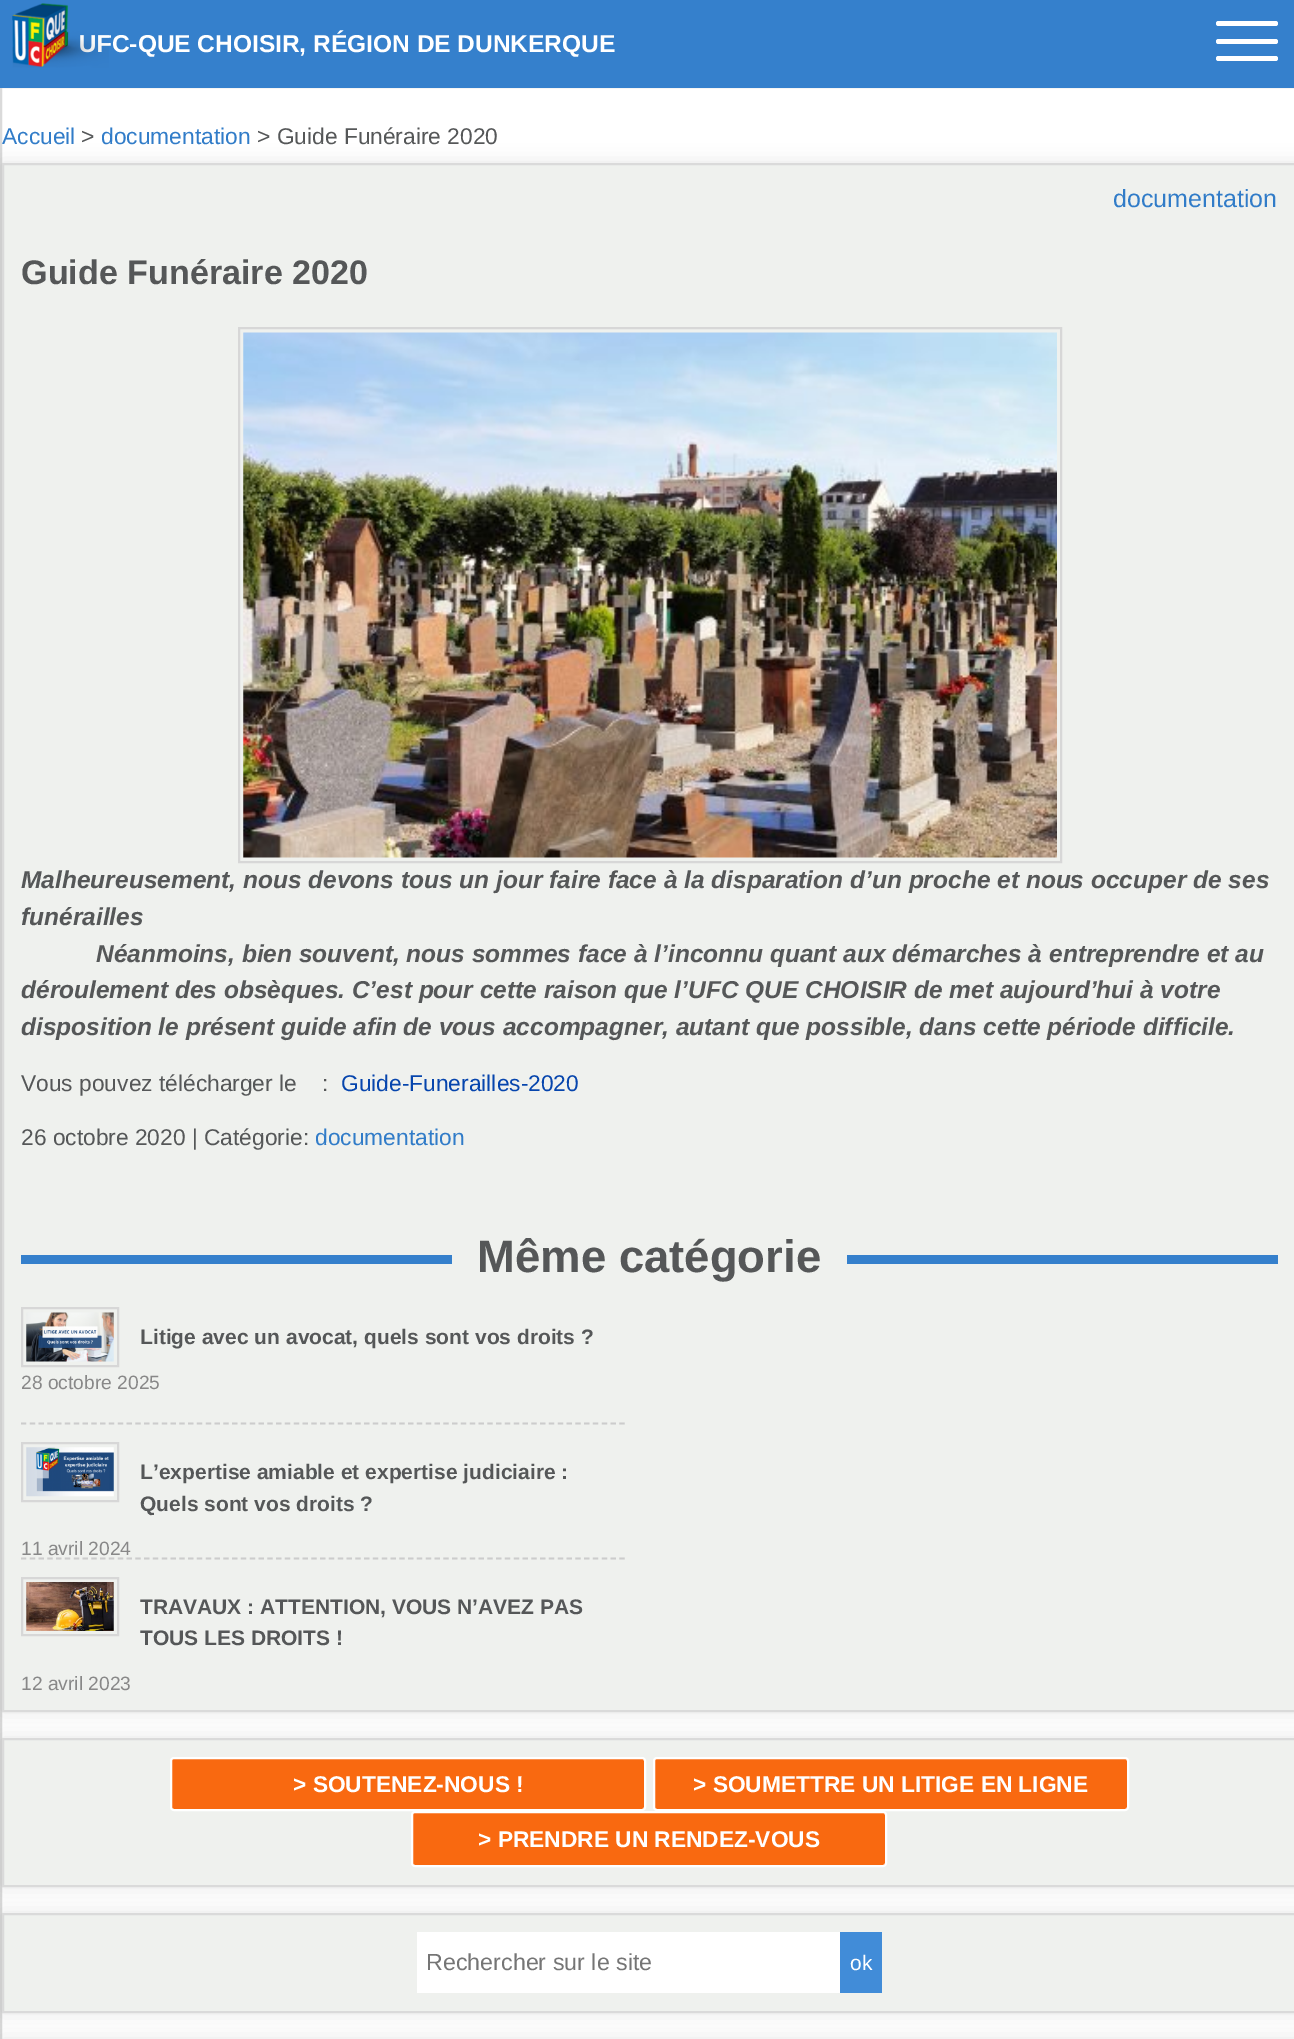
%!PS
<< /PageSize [1294 2039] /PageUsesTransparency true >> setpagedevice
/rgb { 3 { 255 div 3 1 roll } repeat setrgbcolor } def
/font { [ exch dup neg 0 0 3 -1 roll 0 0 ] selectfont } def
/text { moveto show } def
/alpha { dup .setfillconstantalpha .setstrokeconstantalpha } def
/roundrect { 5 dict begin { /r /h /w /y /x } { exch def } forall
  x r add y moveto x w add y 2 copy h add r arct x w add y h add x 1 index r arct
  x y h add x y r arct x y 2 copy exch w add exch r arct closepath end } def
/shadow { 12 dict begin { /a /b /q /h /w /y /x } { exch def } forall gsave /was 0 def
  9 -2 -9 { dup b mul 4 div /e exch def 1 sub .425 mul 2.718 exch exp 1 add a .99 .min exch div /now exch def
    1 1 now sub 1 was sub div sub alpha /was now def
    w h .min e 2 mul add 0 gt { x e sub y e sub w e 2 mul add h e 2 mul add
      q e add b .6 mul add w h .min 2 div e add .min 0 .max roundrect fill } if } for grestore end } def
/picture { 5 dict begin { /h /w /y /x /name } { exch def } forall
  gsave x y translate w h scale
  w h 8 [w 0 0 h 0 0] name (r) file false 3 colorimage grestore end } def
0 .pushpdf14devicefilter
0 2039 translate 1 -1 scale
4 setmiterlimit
255 255 255 rgb
0 0 1294 2039 rectfill
218 218 218 rgb
2 setlinewidth
1 87 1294 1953 rectstroke
53 128 204 rgb
0 0 1294 88 rectfill
255 255 255 rgb
1216 21 62 5 2.5 roundrect fill
1216 39 62 5 2.5 roundrect fill
1216 56 62 5 2.5 roundrect fill
0 0 0 rgb
2 163 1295 1549 0 9 0.1 shadow
239 241 238 rgb
3 164 moveto 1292 0 rlineto 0 1547 rlineto -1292 0 rlineto closepath gsave fill grestore
218 218 218 rgb
stroke
215 215 215 rgb
239 328 822 534 rectstroke
(img_02.rgb) 243 332 814 526 picture
53 128 204 rgb
21 1255 1257 9 rectfill
239 241 238 rgb
452 1255 395 9 rectfill
204 204 204 rgb
1.8 setlinewidth
[5.25 3.55] 0 setdash
21 1423.5 moveto 604 0 rlineto stroke
215 215 215 rgb
2 setlinewidth
[] 0 setdash
22 1308 96 58 rectstroke
(img_03.rgb) 26 1312 88 50 picture
204 204 204 rgb
1.8 setlinewidth
[5.25 3.55] 0 setdash
21 1558.5 moveto 604 0 rlineto stroke
215 215 215 rgb
2 setlinewidth
[] 0 setdash
22 1443 96 58 rectstroke
(img_04.rgb) 26 1447 88 50 picture
22 1578 96 57 rectstroke
(img_05.rgb) 26 1582 88 49 picture
0 0 0 rgb
2 1738 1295 149 0 9 0.1 shadow
239 241 238 rgb
3 1739 moveto 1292 0 rlineto 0 147 rlineto -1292 0 rlineto closepath gsave fill grestore
218 218 218 rgb
stroke
249 105 16 rgb
171 1758 474 52 3 roundrect gsave fill grestore
255 255 255 rgb
stroke
249 105 16 rgb
654 1758 474 52 3 roundrect gsave fill grestore
255 255 255 rgb
stroke
249 105 16 rgb
412 1812 474 54 3 roundrect gsave fill grestore
255 255 255 rgb
stroke
0 0 0 rgb
2 1913 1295 100 0 9 0.1 shadow
239 241 238 rgb
3 1914 moveto 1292 0 rlineto 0 98 rlineto -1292 0 rlineto closepath gsave fill grestore
218 218 218 rgb
stroke
255 255 255 rgb
417 1932 423 61 rectfill
65 140 216 rgb
840 1932 42 61 rectfill
0 0 0 rgb
2 2039 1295 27 0 9 0.1 shadow
/LiberationSans-Bold 24.5 font
255 255 255 rgb
(UFC-QUE CHOISIR, RÉGION DE DUNKERQUE) 79 52 text
(img_01.rgb) 12 3 97 65 picture
/LiberationSans-Regular 22.75 font
49 124 200 rgb
(Accueil) 2 144 text
85 87 88 rgb
(>) 81 144 text
49 124 200 rgb
(documentation) 101 144 text
85 87 88 rgb
(> Guide Funéraire 2020) 257 144 text
/LiberationSans-Regular 25 font
49 124 200 rgb
(documentation) 1113 207 text
/LiberationSans-Bold 34.1 font
85 87 88 rgb
(Guide Funéraire 2020) 21 284 text
/LiberationSans-BoldItalic 24.5 font
(Malheureusement, nous devons tous un jour faire face à la disparation d’un proche et nous occuper de ses) 21 888 text
(funérailles) 21 925 text
(Néanmoins, bien souvent, nous sommes face à l’inconnu quant aux démarches à entreprendre et au) 96 962 text
(déroulement des obsèques. C’est pour cette raison que l’UFC QUE CHOISIR de met aujourd’hui à votre) 21 998 text
(disposition le présent guide afin de vous accompagner, autant que possible, dans cette période difficile.) 21 1035 text
/LiberationSans-Regular 22.75 font
(Vous pouvez télécharger le    :) 21 1091 text
6 69 173 rgb
(Guide-Funerailles-2020) 341 1091 text
85 87 88 rgb
(26 octobre 2020 | Catégorie:) 21 1145 text
49 124 200 rgb
(documentation) 315 1145 text
/LiberationSans-Bold 45.5 font
85 87 88 rgb
(Même catégorie) 477 1272 text
/LiberationSans-Bold 21 font
(Litige avec un avocat, quels sont vos droits ?) 140 1344 text
/LiberationSans-Regular 19.25 font
136 136 136 rgb
(28 octobre 2025) 21 1389 text
/LiberationSans-Bold 21 font
85 87 88 rgb
(L’expertise amiable et expertise judiciaire :) 140 1479 text
(Quels sont vos droits ?) 140 1511 text
/LiberationSans-Regular 19.25 font
136 136 136 rgb
(11 avril 2024) 21 1555 text
/LiberationSans-Bold 21 font
85 87 88 rgb
(TRAVAUX : ATTENTION, VOUS N’AVEZ PAS) 140 1614 text
(TOUS LES DROITS !) 140 1645 text
/LiberationSans-Regular 19.25 font
136 136 136 rgb
(12 avril 2023) 21 1690 text
/LiberationSans-Bold 22.75 font
255 255 255 rgb
(> SOUTENEZ-NOUS !) 293 1792 text
(> SOUMETTRE UN LITIGE EN LIGNE) 693 1792 text
(> PRENDRE UN RENDEZ-VOUS) 478 1847 text
/LiberationSans-Regular 23.25 font
117 117 117 rgb
(Rechercher sur le site) 426 1970 text
/LiberationSans-Regular 21 font
255 255 255 rgb
(ok) 850 1970 text
.poppdf14devicefilter showpage
